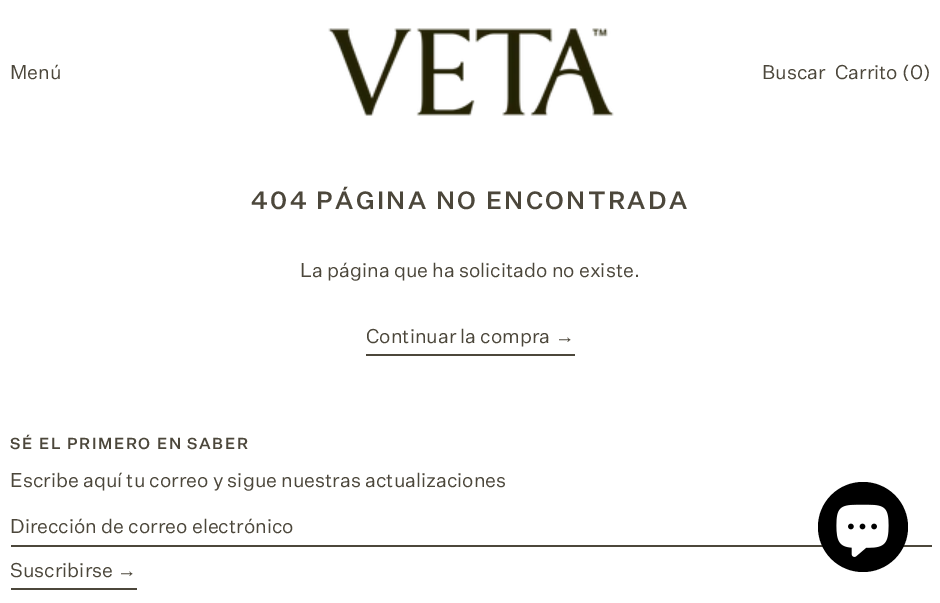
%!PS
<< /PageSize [940 603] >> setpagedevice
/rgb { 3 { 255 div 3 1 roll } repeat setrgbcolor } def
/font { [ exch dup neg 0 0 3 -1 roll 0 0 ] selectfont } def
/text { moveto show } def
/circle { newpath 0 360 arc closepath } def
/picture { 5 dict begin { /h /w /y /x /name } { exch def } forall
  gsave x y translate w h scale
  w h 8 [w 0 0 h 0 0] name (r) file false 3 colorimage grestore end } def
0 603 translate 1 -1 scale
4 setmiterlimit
255 255 255 rgb
0 0 940 603 rectfill
(img_01.rgb) 328 28 286 88 picture
76 71 59 rgb
366 354 209 2 rectfill
11 545 921 2 rectfill
11 588 126 2 rectfill
0 0 0 rgb
863 527 45 circle fill
(img_02.rgb) 836 504 53 53 picture
/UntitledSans-Regular 19.5 font
76 71 59 rgb
(Menú) 10 79 text
(Buscar) 762 79 text
(Carrito \(0\)) 835 79 text
/UntitledSans-Medium 24.4 font
251 209 moveto 2.4 0 (404 PÁGINA NO ENCONTRADA) ashow
/UntitledSans-Regular 19.5 font
(La página que ha solicitado no existe.) 300 277 text
(Continuar la compra) 366 343 text
/LiberationSerif-Regular 19.5 font
(→) 555 343 text
/UntitledSans-Medium 15.6 font
10 449 moveto 1.6 0 (SÉ EL PRIMERO EN SABER) ashow
/UntitledSans-Regular 19.5 font
(Escribe aquí tu correo y sigue nuestras actualizaciones) 10 487 text
(Dirección de correo electrónico) 10 533 text
(Suscribirse) 10 577 text
/LiberationSerif-Regular 19.5 font
(→) 117 577 text
showpage
